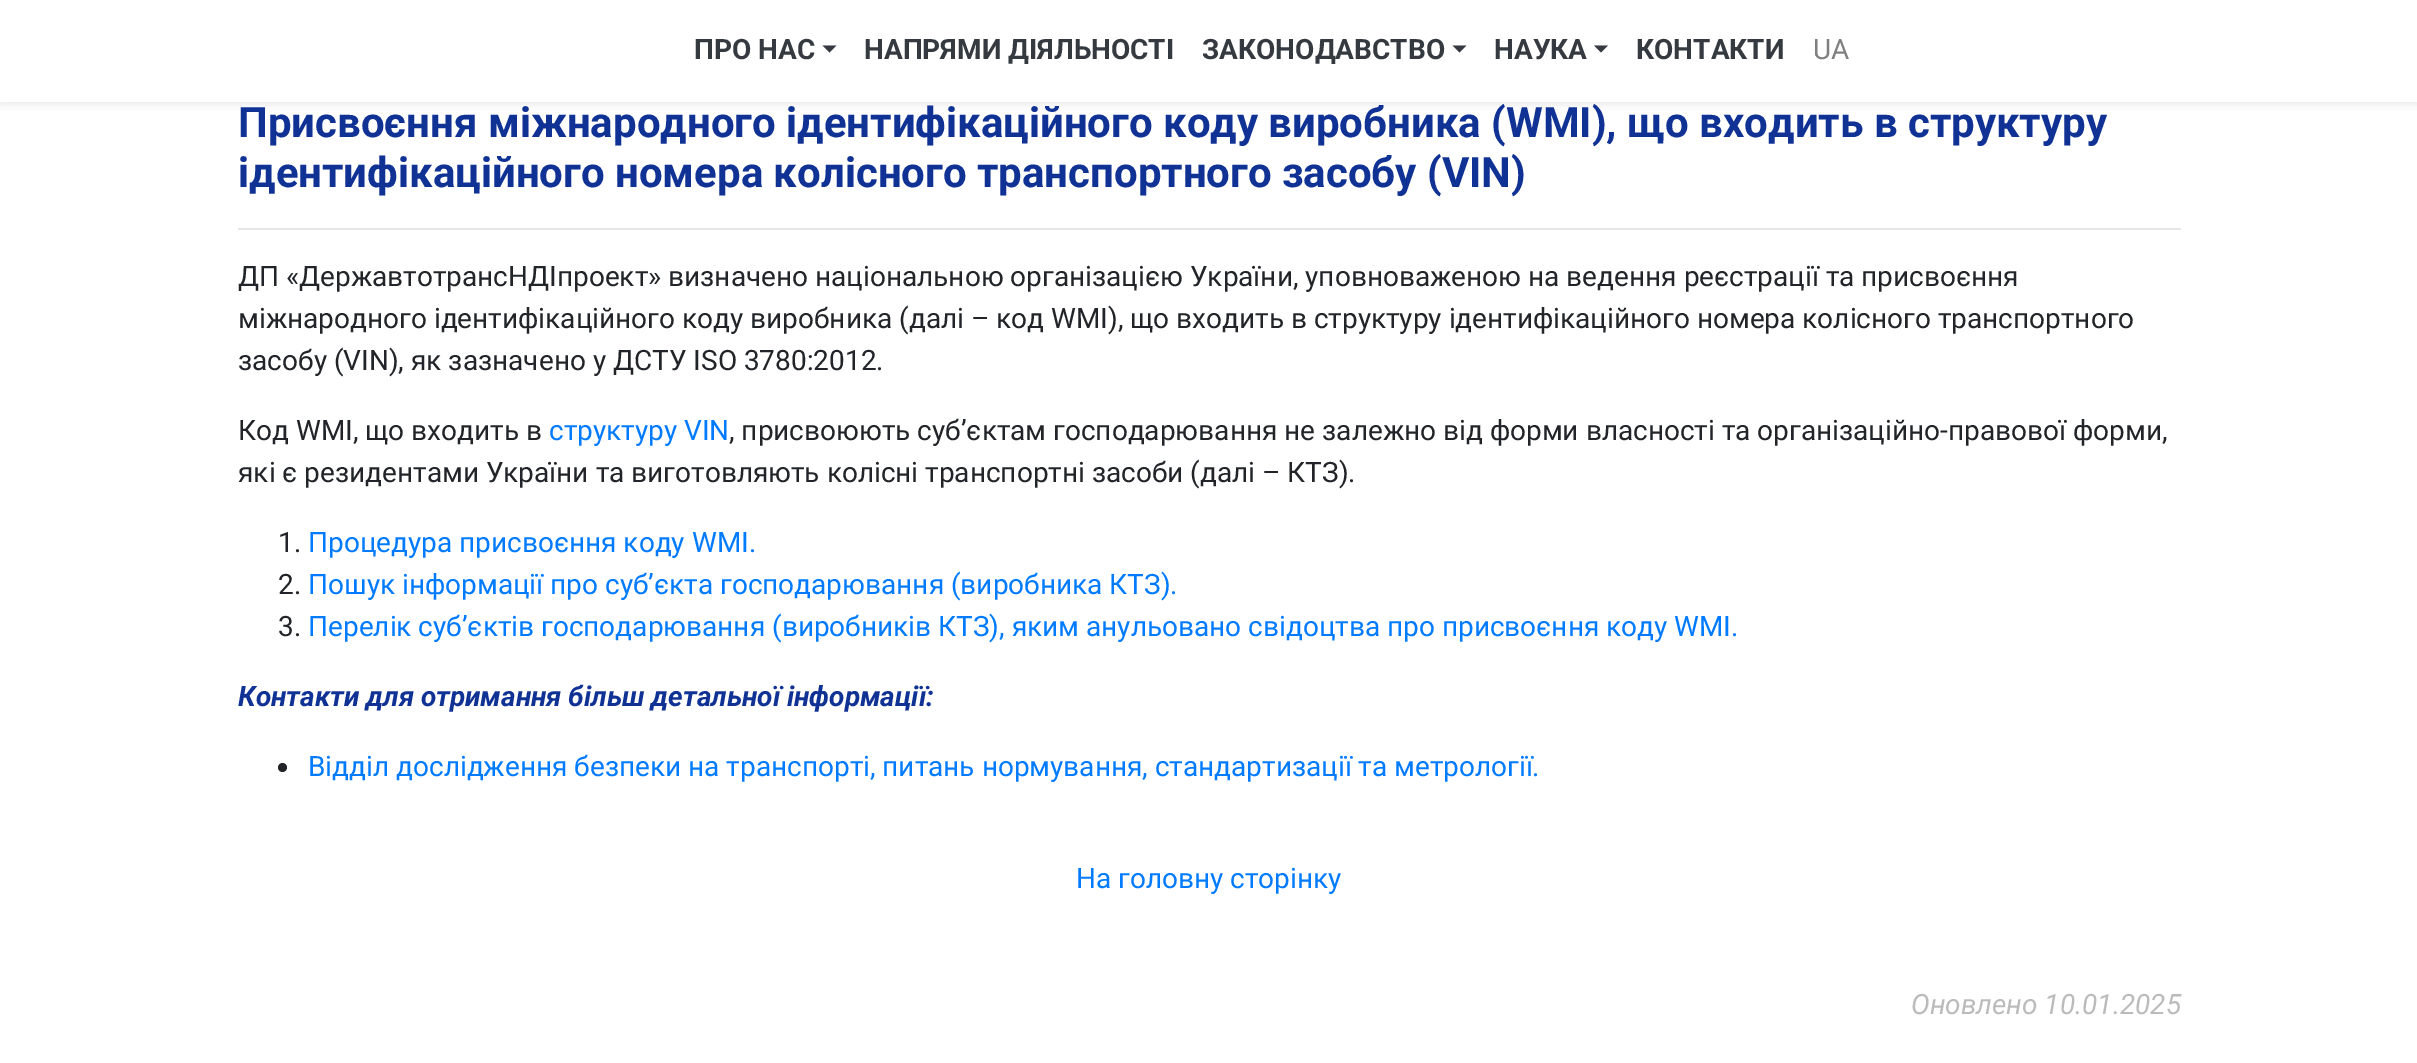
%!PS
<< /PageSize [2417 1063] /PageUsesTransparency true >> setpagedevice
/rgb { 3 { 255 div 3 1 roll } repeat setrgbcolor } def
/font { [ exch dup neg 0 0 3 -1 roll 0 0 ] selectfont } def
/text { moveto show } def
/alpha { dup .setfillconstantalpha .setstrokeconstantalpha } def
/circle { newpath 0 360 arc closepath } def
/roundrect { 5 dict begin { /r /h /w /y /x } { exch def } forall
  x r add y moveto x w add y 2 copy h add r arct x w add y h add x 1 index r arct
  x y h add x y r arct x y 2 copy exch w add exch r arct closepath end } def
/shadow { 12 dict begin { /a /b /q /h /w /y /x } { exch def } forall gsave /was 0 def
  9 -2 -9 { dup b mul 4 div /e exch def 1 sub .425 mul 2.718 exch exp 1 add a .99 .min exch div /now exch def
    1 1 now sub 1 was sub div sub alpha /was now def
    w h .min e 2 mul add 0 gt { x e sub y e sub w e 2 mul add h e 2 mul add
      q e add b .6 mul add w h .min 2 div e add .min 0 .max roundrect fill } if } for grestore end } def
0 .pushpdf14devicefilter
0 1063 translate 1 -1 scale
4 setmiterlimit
255 255 255 rgb
0 0 2417 1063 rectfill
0 0 0 rgb
0 4 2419 101 0 3.5 0.07 shadow
255 255 255 rgb
0 0 2417 102 rectfill
52 58 64 rgb
822.5 45.5 moveto 14 0 rlineto -7 7 rlineto closepath fill
1452.5 45.5 moveto 14 0 rlineto -7 7 rlineto closepath fill
1594 45.5 moveto 14 0 rlineto -7 7 rlineto closepath fill
230 230 230 rgb
238 228 1943 2 rectfill
33 37 41 rgb
282.5 767.5 4.5 circle fill
/Roboto-Bold 28 font
52 58 64 rgb
(ПРО НАС) 694 59 text
(НАПРЯМИ ДІЯЛЬНОСТІ) 864 59 text
(ЗАКОНОДАВСТВО) 1202 59 text
(НАУКА) 1494 59 text
(КОНТАКТИ) 1636 59 text
/Roboto-Regular 28 font
128 128 128 rgb
(UA) 1813 59 text
/Roboto-Bold 42 font
16 50 149 rgb
(Присвоєння міжнародного ідентифікаційного коду виробника \(WMI\), що входить в структуру) 238 137 text
(ідентифікаційного номера колісного транспортного засобу \(VIN\)) 238 187 text
/Roboto-Regular 28 font
33 37 41 rgb
(ДП «ДержавтотрансНДІпроект» визначено національною організацією України, уповноваженою на ведення реєстрації та присвоєння) 238 286 text
(міжнародного ідентифікаційного коду виробника \(далі – код WMI\), що входить в структуру ідентифікаційного номера колісного транспортного) 238 328 text
(засобу \(VIN\), як зазначено у ДСТУ ISO 3780:2012.) 238 370 text
(Код WMI, що входить в) 238 440 text
0 123 255 rgb
(структуру VIN) 549 440 text
33 37 41 rgb
(, присвоюють суб’єктам господарювання не залежно від форми власності та організаційно-правової форми,) 729 440 text
(які є резидентами України та виготовляють колісні транспортні засоби \(далі – КТЗ\).) 238 482 text
(1.) 278 552 text
0 123 255 rgb
(Процедура присвоєння коду WMI.) 308 552 text
33 37 41 rgb
(2.) 278 594 text
0 123 255 rgb
(Пошук інформації про суб’єкта господарювання \(виробника КТЗ\).) 308 594 text
33 37 41 rgb
(3.) 278 636 text
0 123 255 rgb
(Перелік суб’єктів господарювання \(виробників КТЗ\), яким анульовано свідоцтва про присвоєння коду WMI.) 308 636 text
/Roboto-BoldItalic 28 font
16 50 149 rgb
(Контакти для отримання більш детальної інформації:) 238 706 text
/Roboto-Regular 28 font
0 123 255 rgb
(Відділ дослідження безпеки на транспорті, питань нормування, стандартизації та метрології.) 308 776 text
(На головну сторінку) 1076 888 text
/Roboto-Italic 28 font
187 187 187 rgb
(Оновлено 10.01.2025) 1911 1014 text
.poppdf14devicefilter showpage
